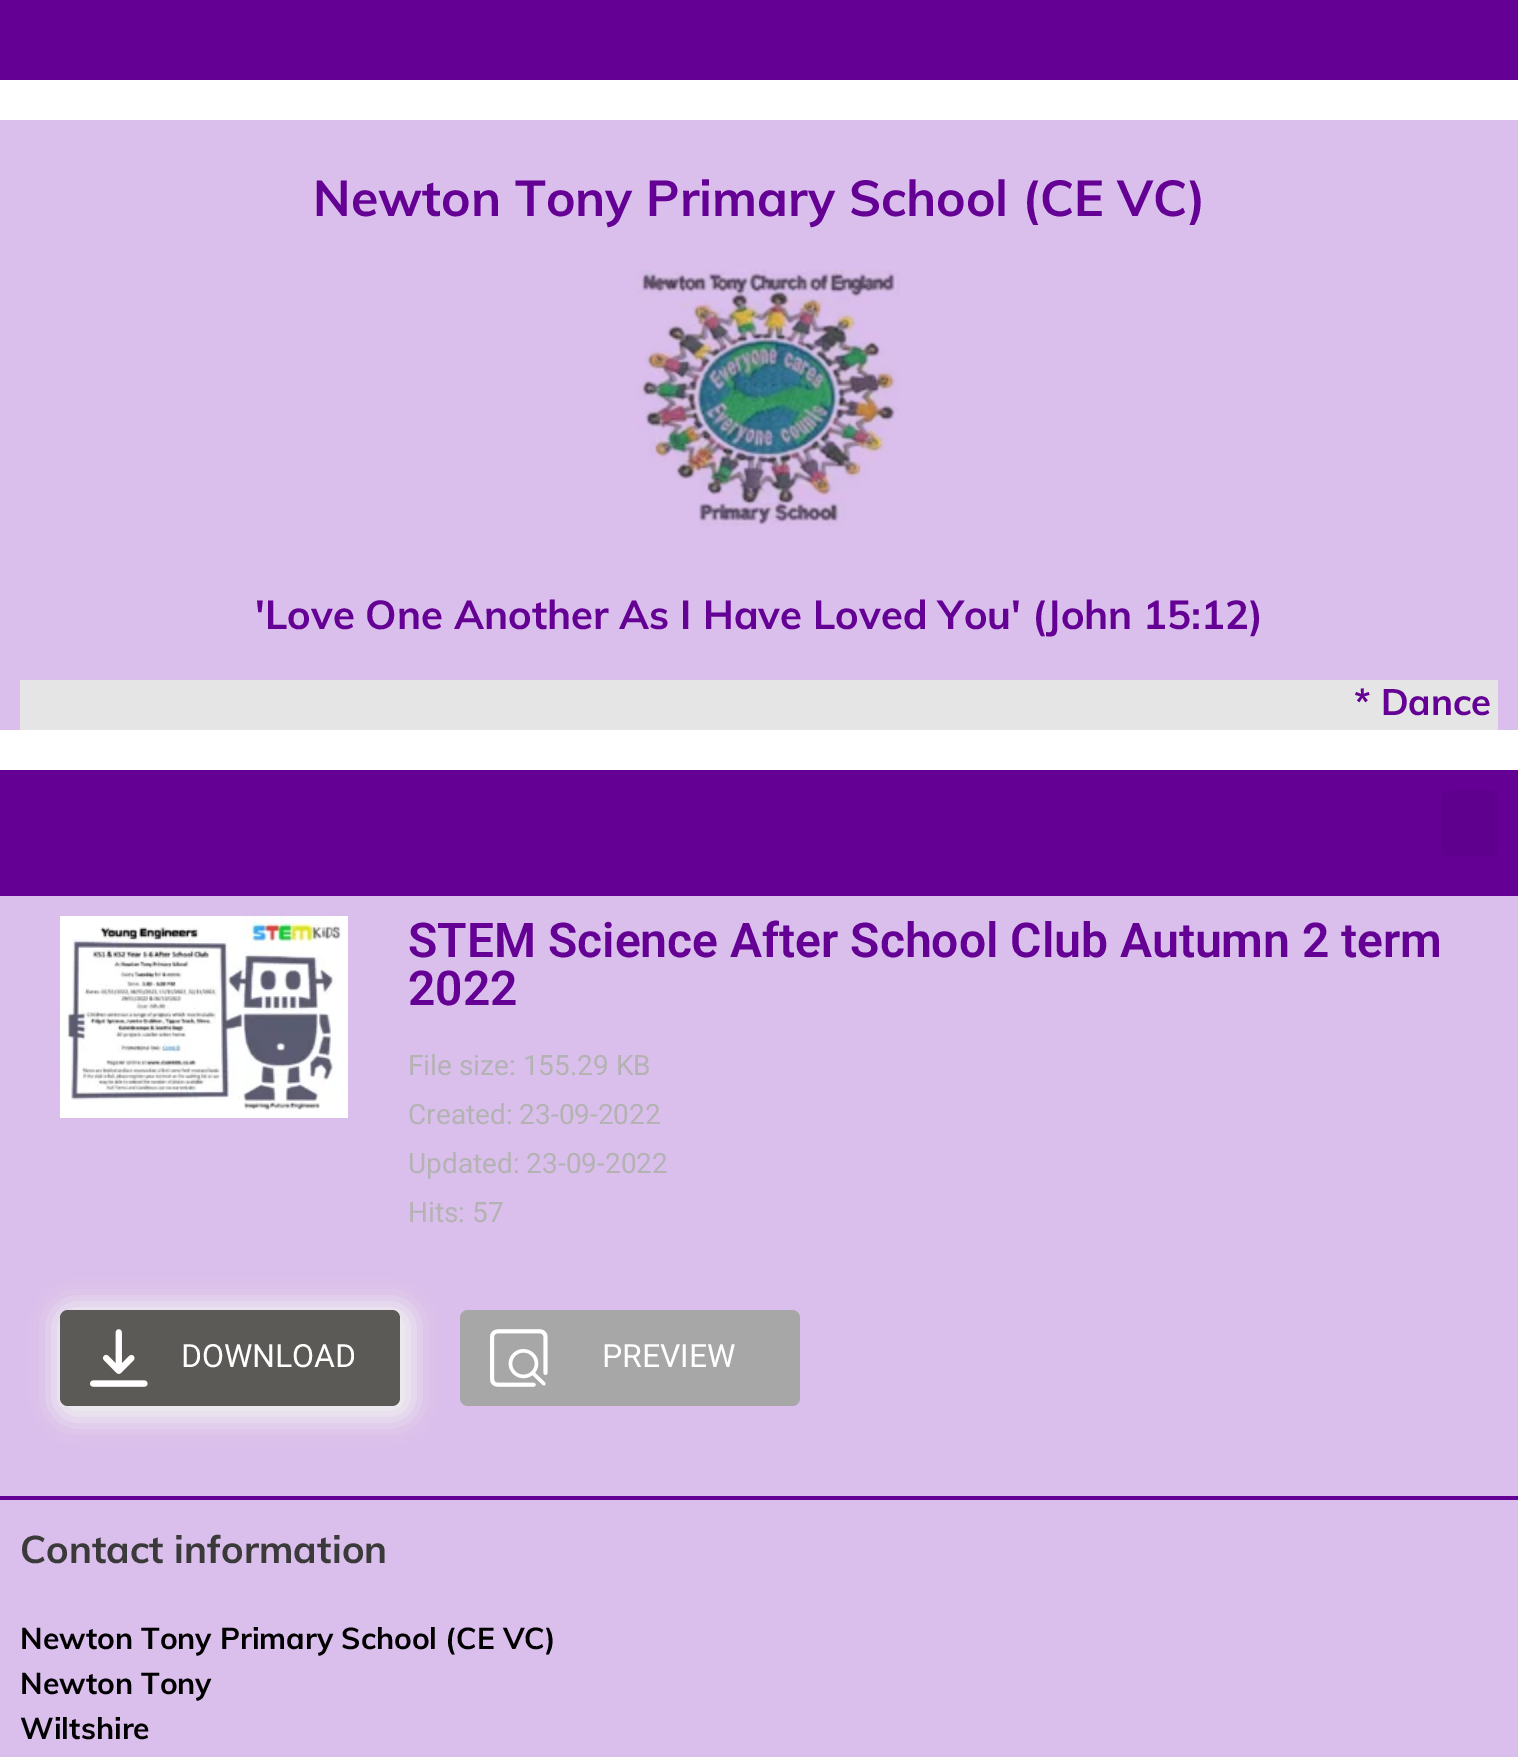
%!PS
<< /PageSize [1518 1757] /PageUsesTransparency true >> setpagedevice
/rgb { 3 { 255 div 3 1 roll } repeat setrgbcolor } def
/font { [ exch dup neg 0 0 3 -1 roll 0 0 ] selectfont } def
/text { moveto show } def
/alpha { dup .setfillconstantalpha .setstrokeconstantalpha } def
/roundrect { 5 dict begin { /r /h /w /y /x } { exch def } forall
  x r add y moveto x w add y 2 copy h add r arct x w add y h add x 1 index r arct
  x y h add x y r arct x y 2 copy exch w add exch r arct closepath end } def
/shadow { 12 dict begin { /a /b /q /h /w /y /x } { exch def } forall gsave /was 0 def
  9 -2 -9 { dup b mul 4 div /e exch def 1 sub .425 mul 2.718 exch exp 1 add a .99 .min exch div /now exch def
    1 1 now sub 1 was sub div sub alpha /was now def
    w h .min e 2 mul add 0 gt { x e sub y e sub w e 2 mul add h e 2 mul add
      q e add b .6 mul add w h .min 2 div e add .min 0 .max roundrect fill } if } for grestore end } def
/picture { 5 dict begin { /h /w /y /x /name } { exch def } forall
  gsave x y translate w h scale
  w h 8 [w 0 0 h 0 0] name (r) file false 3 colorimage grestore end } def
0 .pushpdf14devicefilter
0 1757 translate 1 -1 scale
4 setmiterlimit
218 190 235 rgb
0 0 1518 1757 rectfill
101 0 149 rgb
0 0 1518 80 rectfill
255 255 255 rgb
0 80 1518 40 rectfill
(img_01.rgb) 636 270 264 256 picture
229 229 229 rgb
20 680 1478 50 rectfill
101 0 149 rgb
0 770 1518 126 rectfill
255 255 255 rgb
0 730 1518 40 rectfill
96 0 142 rgb
1442 790 56 66 6 roundrect fill
(img_02.rgb) 60 916 288 202 picture
240 240 240 rgb
54 1304 360 116 18 12 1 shadow
92 90 87 rgb
60 1310 340 96 8 roundrect fill
(img_03.rgb) 90 1329 58 58 picture
167 167 167 rgb
460 1310 340 96 8 roundrect fill
(img_04.rgb) 490 1329 58 58 picture
101 0 149 rgb
0 1496 1518 4 rectfill
/Muli-Bold 50 font
(Newton Tony Primary School \(CE VC\)) 313 216 text
/Muli-Bold 40 font
('Love One Another As I Have Loved You' \(John 15:12\)) 255 629 text
/Muli-Bold 36.5 font
(* Dance) 1354 715 text
/Roboto-SemiBold 48 font
(STEM Science After School Club Autumn 2 term) 408 957 text
(2022) 408 1005 text
/Roboto-Regular 28 font
179 179 179 rgb
(File size: 155.29 KB) 408 1075 text
(Created: 23-09-2022) 408 1124 text
(Updated: 23-09-2022) 408 1173 text
(Hits: 57) 408 1222 text
/Roboto-Regular 32 font
255 255 255 rgb
(DOWNLOAD) 181 1367 text
(PREVIEW) 602 1367 text
/Muli-Bold 38.25 font
58 58 58 rgb
(Contact information) 20 1563 text
/Muli-Bold 30 font
0 0 0 rgb
(Newton Tony Primary School \(CE VC\)) 20 1649 text
(Newton Tony) 20 1694 text
(Wiltshire) 20 1739 text
.poppdf14devicefilter showpage
